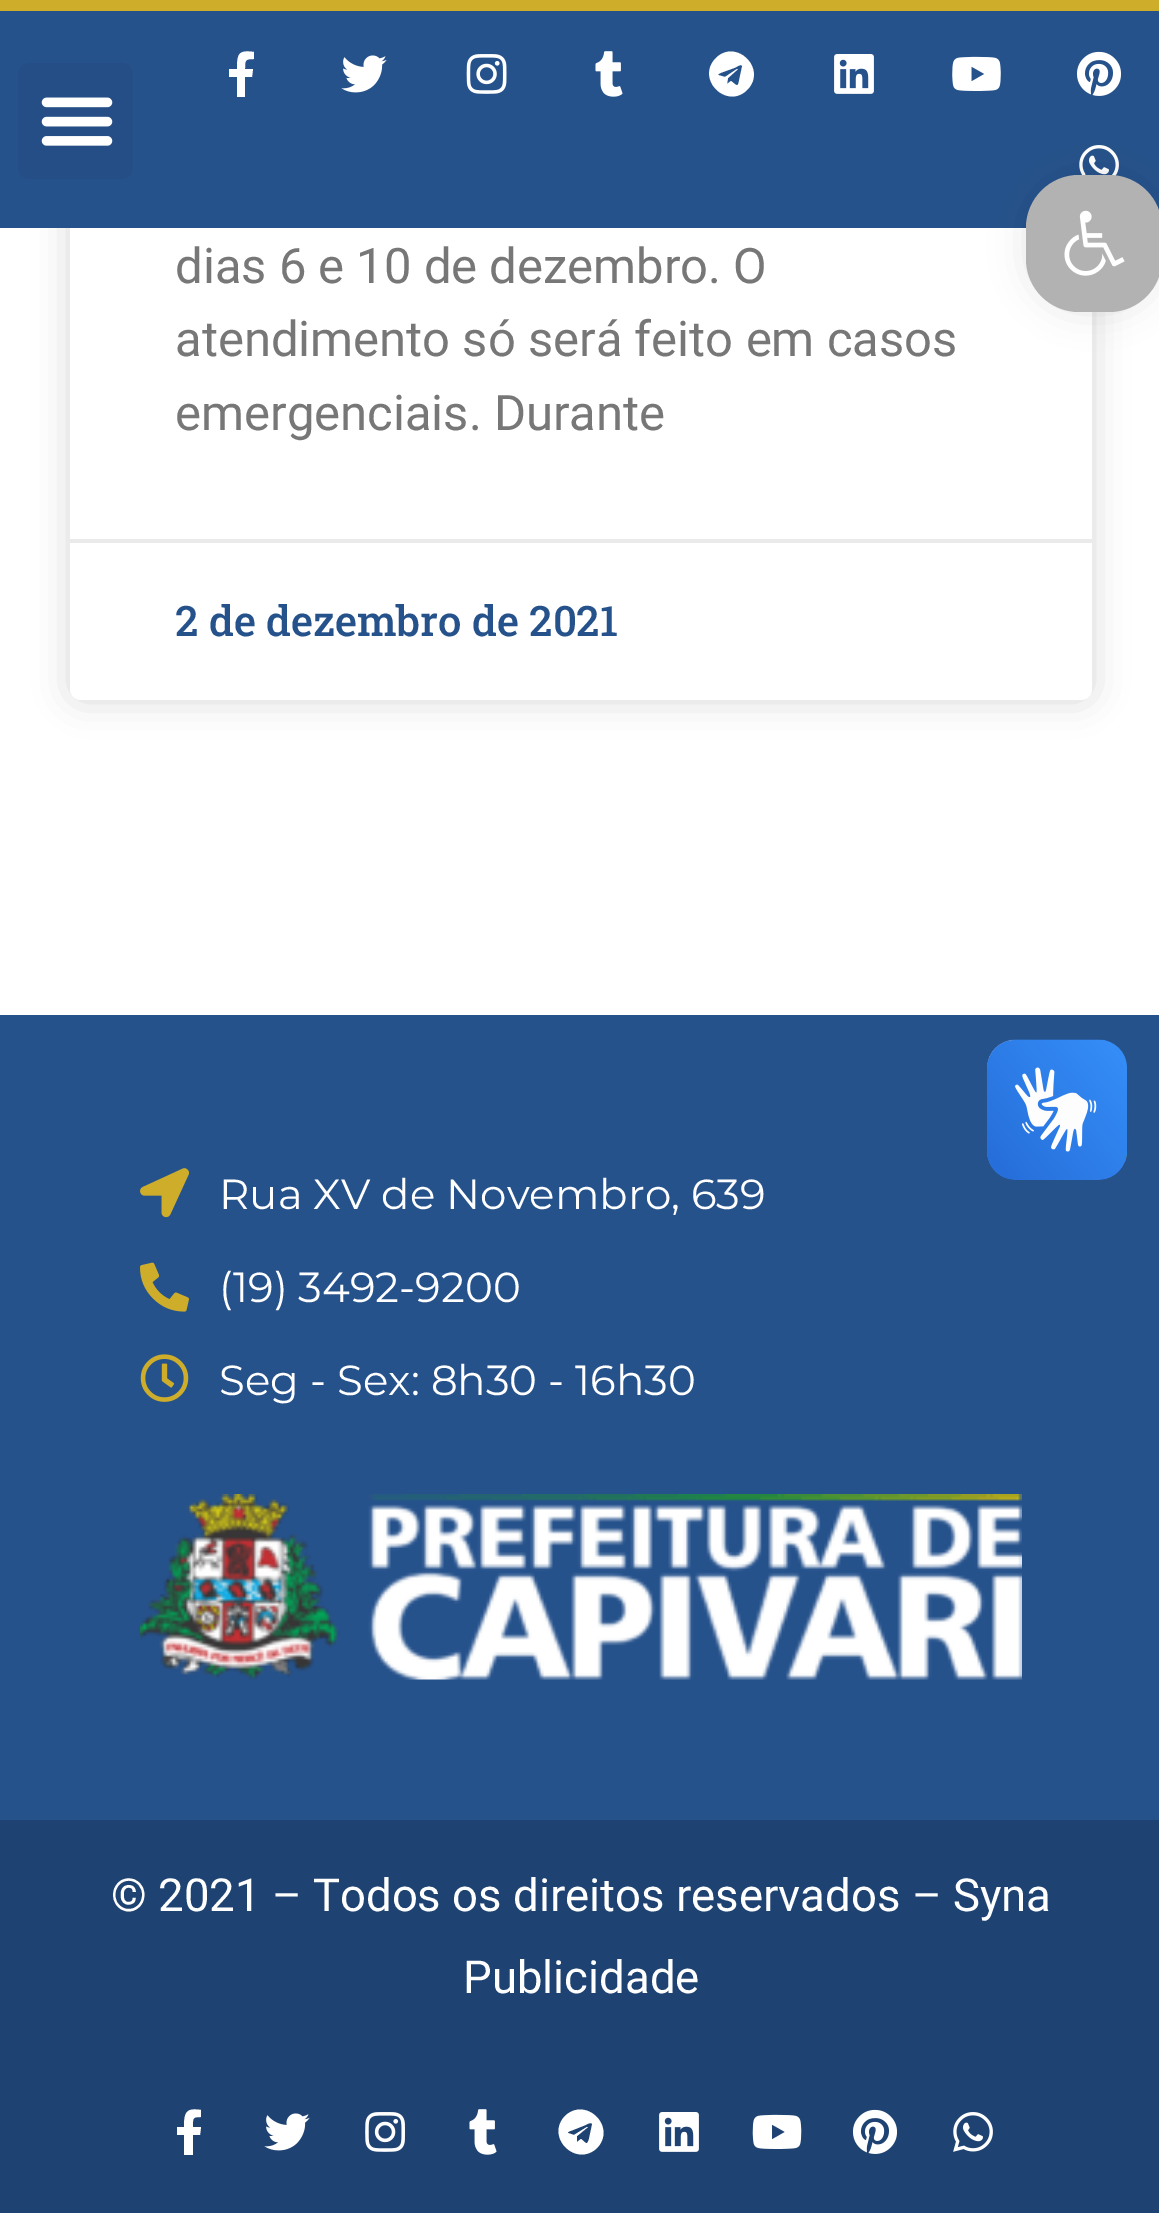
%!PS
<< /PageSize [1159 2213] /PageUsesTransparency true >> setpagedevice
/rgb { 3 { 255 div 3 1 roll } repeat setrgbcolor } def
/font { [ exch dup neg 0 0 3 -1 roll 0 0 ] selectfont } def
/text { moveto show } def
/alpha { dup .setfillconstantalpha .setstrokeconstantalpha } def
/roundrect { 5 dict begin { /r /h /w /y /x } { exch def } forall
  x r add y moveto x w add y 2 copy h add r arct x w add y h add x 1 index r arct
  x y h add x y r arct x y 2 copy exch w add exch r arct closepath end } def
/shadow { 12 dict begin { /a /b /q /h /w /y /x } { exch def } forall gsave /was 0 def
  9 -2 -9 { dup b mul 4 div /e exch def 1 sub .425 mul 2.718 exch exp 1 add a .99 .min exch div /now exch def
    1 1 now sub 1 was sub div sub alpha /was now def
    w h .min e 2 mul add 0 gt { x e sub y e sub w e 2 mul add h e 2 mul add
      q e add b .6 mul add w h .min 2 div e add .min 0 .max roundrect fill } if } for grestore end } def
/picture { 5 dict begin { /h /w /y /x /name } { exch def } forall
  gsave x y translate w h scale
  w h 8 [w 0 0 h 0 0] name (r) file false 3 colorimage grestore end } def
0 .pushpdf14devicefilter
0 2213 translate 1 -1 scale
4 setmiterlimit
255 255 255 rgb
0 0 1159 2213 rectfill
0 0 0 rgb
70 -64 1022 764 11 17.5 0.15 shadow
255 255 255 rgb
70 -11 1022 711 11 roundrect fill
38 82 140 rgb
0 11 1159 217 rectfill
206 173 42 rgb
0 0 1159 11 rectfill
36 78 133 rgb
18 63 115 116 11 roundrect fill
(img_01.rgb) 41 97 72 49 picture
255 255 255 rgb
252 77 moveto -7 0 rlineto 0 20 rlineto -8 0 rlineto 0 -20 rlineto -8 0 rlineto 0 -8 rlineto 8 0 rlineto 0 -16 2 -19 17 -17 rcurveto 0 7 rlineto -9 0 -9 1 -9 10 rcurveto 8 0 rlineto closepath fill
(img_02.rgb) 341 55 46 38 picture
(img_03.rgb) 466 54 41 40 picture
(img_04.rgb) 595 51 28 46 picture
716 58 moveto 20 -20 52 11 31 32 rcurveto -20 20 -52 -11 -31 -32 rcurveto closepath 742 67 moveto 1 -5 -7 1 -8 1 rcurveto -11 4 rlineto -3 1 -5 2 -5 3 rcurveto 7 2 rlineto 12 -8 rlineto 1 0 rlineto -10 9 rlineto -1 6 rlineto 4 -3 rlineto 5 4 7 7 8 0 rcurveto closepath fill
(img_05.rgb) 834 54 40 40 picture
(img_06.rgb) 952 56 49 35 picture
(img_07.rgb) 1077 51 44 45 picture
(img_08.rgb) 1079 145 40 31 picture
234 234 234 rgb
70 539 1022 4 rectfill
38 82 140 rgb
0 1015 1159 805 rectfill
(img_09.rgb) 140 1168 50 50 picture
(img_10.rgb) 140 1262 49 50 picture
(img_11.rgb) 140 1354 49 48 picture
(img_12.rgb) 140 1494 882 186 picture
30 66 114 rgb
0 1820 1159 393 rectfill
255 255 255 rgb
200 2135 moveto -7 0 rlineto 0 20 rlineto -9 0 rlineto 0 -20 rlineto -7 0 rlineto 0 -8 rlineto 7 0 rlineto 0 -16 3 -19 17 -17 rcurveto 0 7 rlineto -9 0 -8 1 -8 10 rcurveto 8 0 rlineto closepath fill
(img_13.rgb) 264 2113 46 38 picture
(img_14.rgb) 365 2112 40 40 picture
(img_15.rgb) 469 2109 28 46 picture
565 2116 moveto 21 -20 52 11 32 32 rcurveto -21 20 -52 -11 -32 -32 rcurveto closepath 592 2125 moveto 1 -5 -8 1 -9 1 rcurveto -10 4 rlineto -3 1 -6 2 -5 3 rcurveto 6 2 rlineto 13 -8 rlineto 1 0 rlineto -11 9 rlineto 0 6 rlineto 4 -3 rlineto 5 4 6 7 8 0 rcurveto closepath fill
(img_16.rgb) 659 2112 40 40 picture
(img_17.rgb) 752 2114 50 35 picture
(img_18.rgb) 853 2109 44 45 picture
(img_19.rgb) 953 2112 40 40 picture
0 0 0 rgb
1026 175 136 137 53 17.5 0.1 shadow
178 178 178 rgb
1026 175 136 137 53 roundrect fill
(img_20.rgb) 1064 210 61 66 picture
(img_21.rgb) 987 1039 140 141 picture
(img_22.rgb) 987 1040 140 140 picture
/Roboto-Regular 49 font
119 119 119 rgb
(dias 6 e 10 de dezembro. O) 175 283 text
(atendimento só será feito em casos) 175 356 text
(emergenciais. Durante) 175 430 text
/RobotoSlab-Medium 42 font
38 82 140 rgb
(2 de dezembro de 2021) 175 636 text
/Montserrat-Regular 42 font
255 255 255 rgb
(Rua XV de Novembro, 639) 219 1209 text
(\(19\) 3492-9200) 219 1302 text
(Seg - Sex: 8h30 - 16h30) 219 1395 text
/Roboto-Regular 45.5 font
(© 2021 – Todos os direitos reservados – Syna) 111 1911 text
(Publicidade) 463 1993 text
.poppdf14devicefilter showpage
